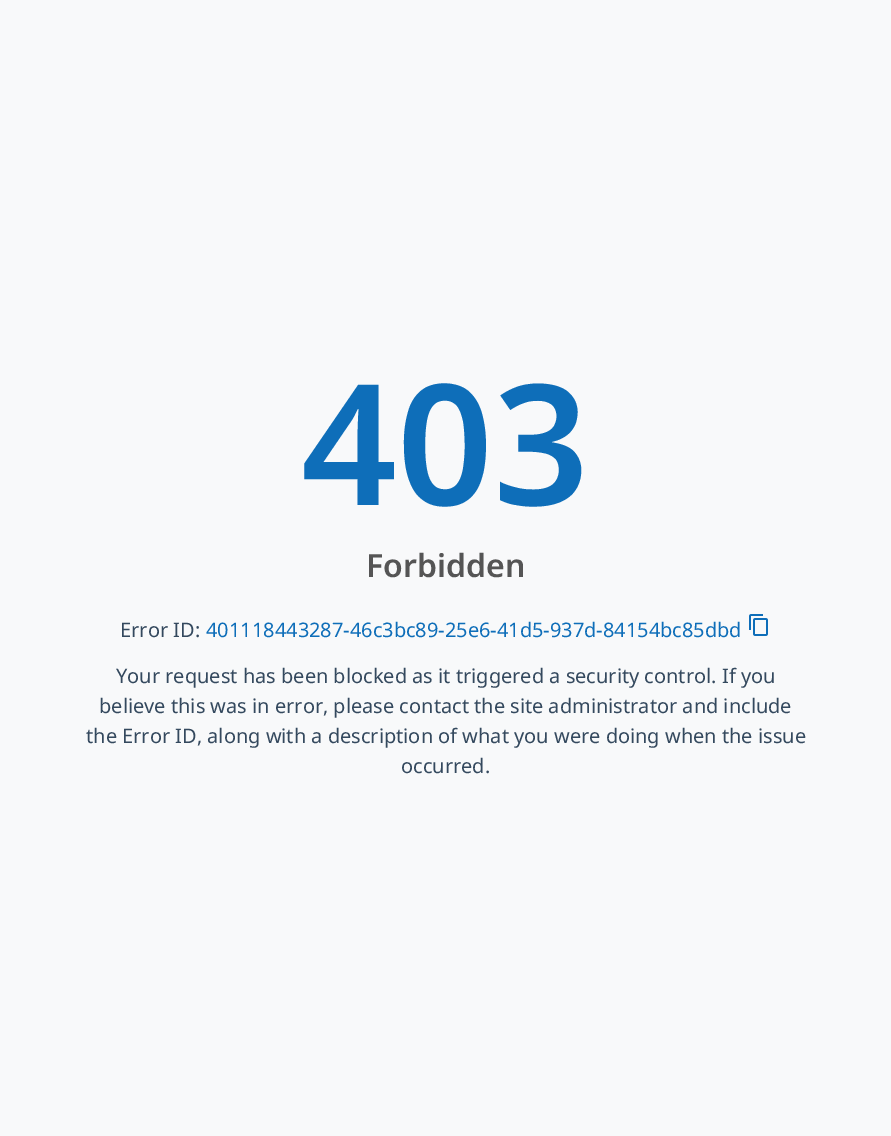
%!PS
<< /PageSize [891 1136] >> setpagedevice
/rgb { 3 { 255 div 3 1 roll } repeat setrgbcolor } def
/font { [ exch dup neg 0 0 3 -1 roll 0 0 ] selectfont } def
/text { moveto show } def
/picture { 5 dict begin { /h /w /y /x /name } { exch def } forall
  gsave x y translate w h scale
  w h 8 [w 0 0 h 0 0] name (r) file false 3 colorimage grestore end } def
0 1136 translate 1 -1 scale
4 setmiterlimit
248 249 250 rgb
0 0 891 1136 rectfill
(img_01.rgb) 749 614 19 22 picture
/NotoSans-SemiBold 168 font
14 110 185 rgb
(403) 301 505 text
/NotoSans-SemiBold 32 font
85 85 85 rgb
(Forbidden) 366 577 text
/NotoSans-Regular 20 font
52 73 94 rgb
(Error ID:) 120 637 text
14 110 185 rgb
(401118443287-46c3bc89-25e6-41d5-937d-84154bc85dbd) 206 637 text
52 73 94 rgb
(Your request has been blocked as it triggered a security control. If you) 116 683 text
(believe this was in error, please contact the site administrator and include) 99 713 text
(the Error ID, along with a description of what you were doing when the issue) 86 743 text
(occurred.) 401 773 text
showpage
